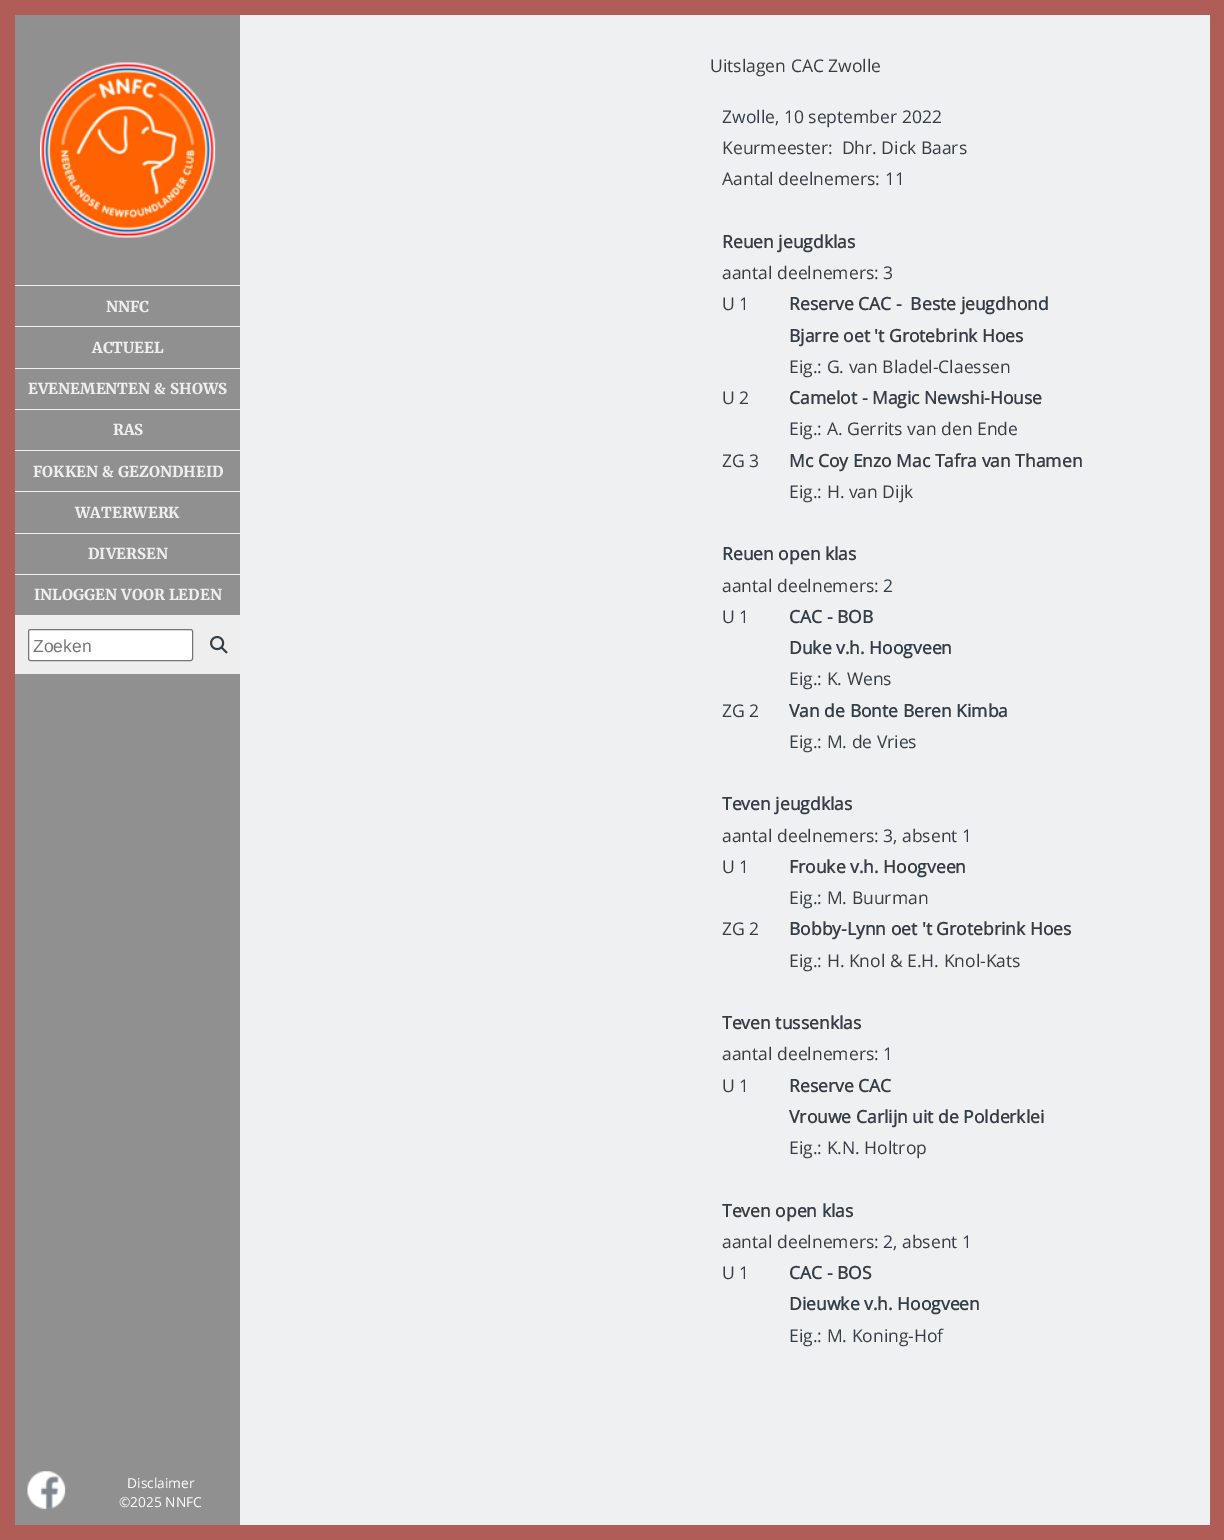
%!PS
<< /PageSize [1224 1540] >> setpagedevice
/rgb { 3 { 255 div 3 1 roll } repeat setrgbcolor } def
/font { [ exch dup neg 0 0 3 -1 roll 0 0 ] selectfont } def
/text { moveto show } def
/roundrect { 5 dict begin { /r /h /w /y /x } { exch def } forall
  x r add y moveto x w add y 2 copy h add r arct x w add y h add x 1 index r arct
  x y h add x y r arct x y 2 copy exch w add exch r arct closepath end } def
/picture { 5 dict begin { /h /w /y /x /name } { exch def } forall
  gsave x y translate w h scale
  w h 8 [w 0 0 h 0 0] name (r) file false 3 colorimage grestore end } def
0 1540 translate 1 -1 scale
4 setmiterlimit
175 93 86 rgb
0 0 1224 1540 rectfill
239 240 241 rgb
240 15 970 1510 rectfill
144 144 144 rgb
15 15 225 1510 rectfill
(img_01.rgb) 40 62 176 176 picture
238 238 238 rgb
15 285 225 1 rectfill
15 326 225 1 rectfill
15 368 225 1 rectfill
15 409 225 1 rectfill
15 450 225 1 rectfill
15 491 225 1 rectfill
15 533 225 1 rectfill
15 574 225 1 rectfill
15 615 225 59 rectfill
255 255 255 rgb
28.5 629.5 164 31 2 roundrect gsave fill grestore
118 118 118 rgb
stroke
(img_02.rgb) 210 635 18 19 picture
(img_03.rgb) 27 1471 39 38 picture
/Merriweather-Bold 15 font
238 238 238 rgb
(NNFC) 106 312 text
(ACTUEEL) 92 353 text
(EVENEMENTEN & SHOWS) 28 394 text
(RAS) 113 435 text
(FOKKEN & GEZONDHEID) 33 477 text
(WATERWERK) 75 518 text
(DIVERSEN) 88 559 text
(INLOGGEN VOOR LEDEN) 34 600 text
/LiberationSans-Regular 17.5 font
117 117 117 rgb
(Zoeken) 33 652 text
/OpenSans-Regular 13.75 font
255 255 255 rgb
(Disclaimer) 127 1488 text
(©2025 NNFC) 119 1507 text
/OpenSans-Regular 17.5 font
51 62 72 rgb
(Uitslagen CAC Zwolle) 710 72 text
(Zwolle, 10 september 2022) 722 123 text
(Keurmeester:  Dhr. Dick Baars) 722 154 text
(Aantal deelnemers: 11) 722 185 text
/OpenSans-Bold 17.5 font
(Reuen jeugdklas) 722 248 text
/OpenSans-Regular 17.5 font
(aantal deelnemers: 3) 722 279 text
(U 1) 722 310 text
/OpenSans-Bold 17.5 font
(Reserve CAC -  Beste jeugdhond) 789 310 text
(Bjarre oet 't Grotebrink Hoes) 789 342 text
/OpenSans-Regular 17.5 font
(Eig.: G. van Bladel-Claessen) 789 373 text
(U 2) 722 404 text
/OpenSans-Bold 17.5 font
(Camelot - Magic Newshi-House) 789 404 text
/OpenSans-Regular 17.5 font
(Eig.: A. Gerrits van den Ende) 789 435 text
(ZG 3) 722 467 text
/OpenSans-Bold 17.5 font
(Mc Coy Enzo Mac Tafra van Thamen) 789 467 text
/OpenSans-Regular 17.5 font
(Eig.: H. van Dijk) 789 498 text
/OpenSans-Bold 17.5 font
(Reuen open klas) 722 560 text
/OpenSans-Regular 17.5 font
(aantal deelnemers: 2) 722 592 text
(U 1) 722 623 text
/OpenSans-Bold 17.5 font
(CAC - BOB) 789 623 text
(Duke v.h. Hoogveen) 789 654 text
/OpenSans-Regular 17.5 font
(Eig.: K. Wens) 789 685 text
(ZG 2) 722 717 text
/OpenSans-Bold 17.5 font
(Van de Bonte Beren Kimba) 789 717 text
/OpenSans-Regular 17.5 font
(Eig.: M. de Vries) 789 748 text
/OpenSans-Bold 17.5 font
(Teven jeugdklas) 722 810 text
/OpenSans-Regular 17.5 font
(aantal deelnemers: 3, absent 1) 722 842 text
(U 1) 722 873 text
/OpenSans-Bold 17.5 font
(Frouke v.h. Hoogveen) 789 873 text
/OpenSans-Regular 17.5 font
(Eig.: M. Buurman) 789 904 text
(ZG 2) 722 935 text
/OpenSans-Bold 17.5 font
(Bobby-Lynn oet 't Grotebrink Hoes) 789 935 text
/OpenSans-Regular 17.5 font
(Eig.: H. Knol & E.H. Knol-Kats) 789 967 text
/OpenSans-Bold 17.5 font
(Teven tussenklas) 722 1029 text
/OpenSans-Regular 17.5 font
(aantal deelnemers: 1) 722 1060 text
(U 1) 722 1092 text
/OpenSans-Bold 17.5 font
(Reserve CAC) 789 1092 text
(Vrouwe Carlijn uit de Polderklei) 789 1123 text
/OpenSans-Regular 17.5 font
(Eig.: K.N. Holtrop) 789 1154 text
/OpenSans-Bold 17.5 font
(Teven open klas) 722 1217 text
/OpenSans-Regular 17.5 font
(aantal deelnemers: 2, absent 1) 722 1248 text
(U 1) 722 1279 text
/OpenSans-Bold 17.5 font
(CAC - BOS) 789 1279 text
(Dieuwke v.h. Hoogveen) 789 1310 text
/OpenSans-Regular 17.5 font
(Eig.: M. Koning-Hof) 789 1342 text
showpage
